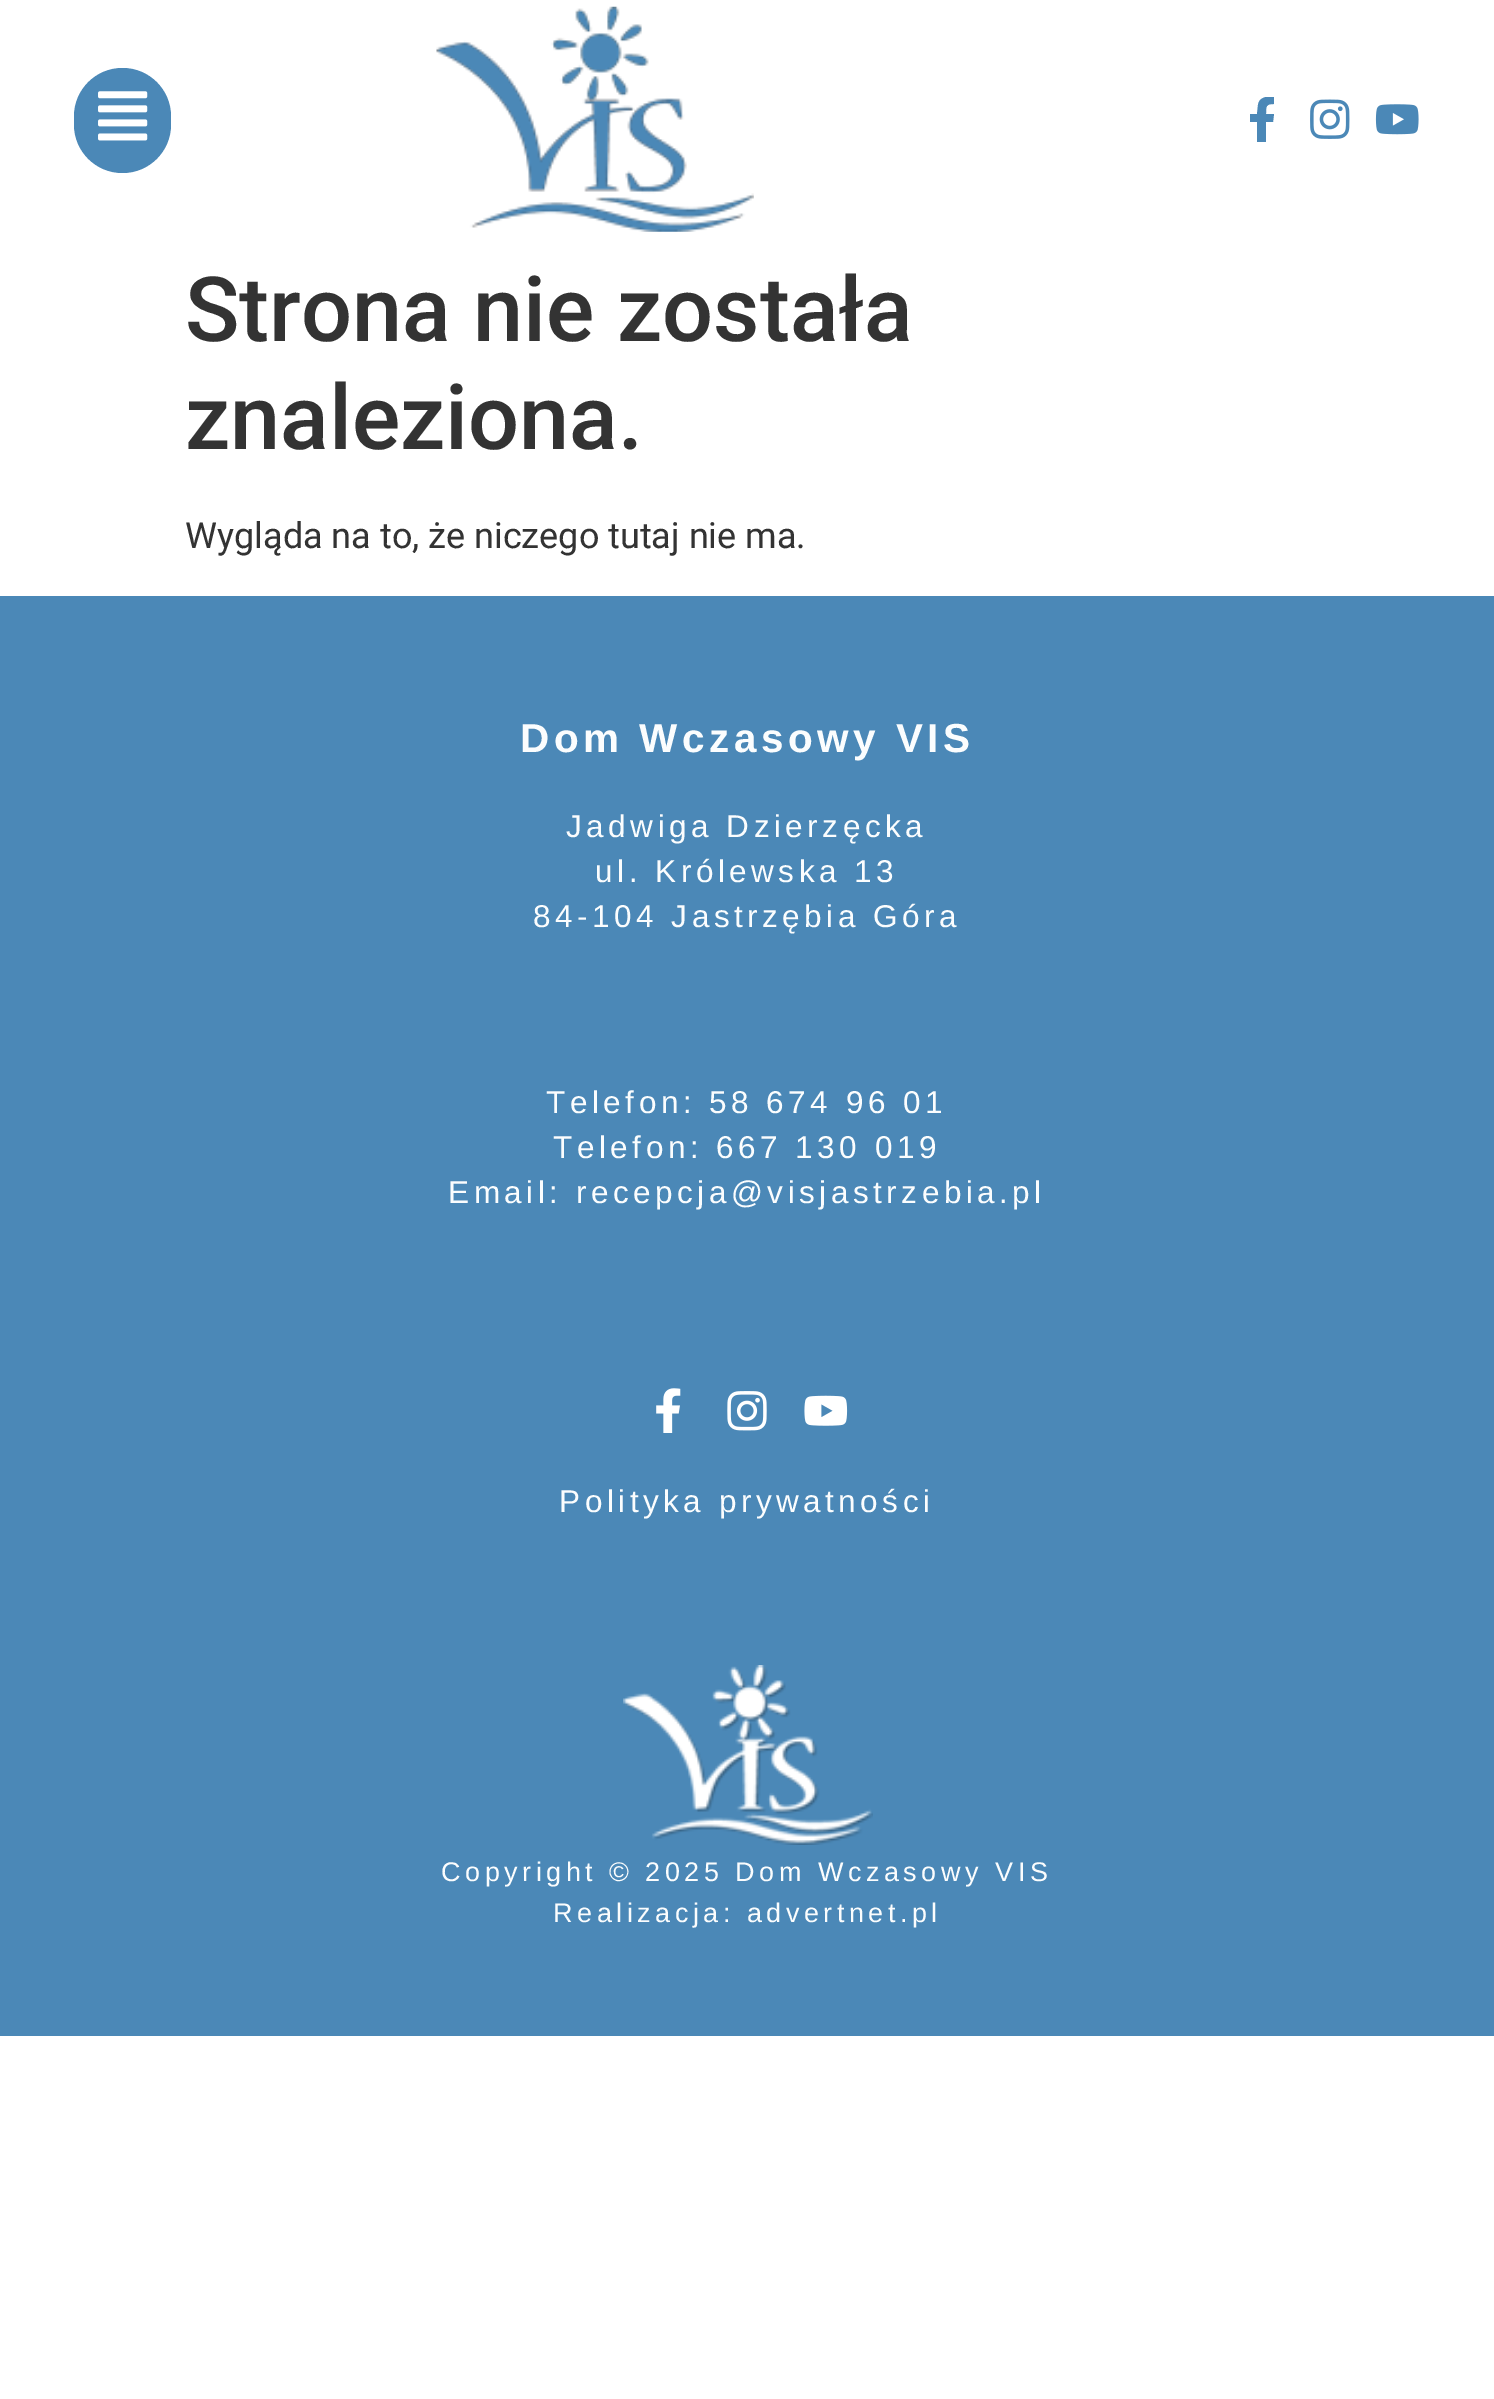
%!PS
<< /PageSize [1494 2399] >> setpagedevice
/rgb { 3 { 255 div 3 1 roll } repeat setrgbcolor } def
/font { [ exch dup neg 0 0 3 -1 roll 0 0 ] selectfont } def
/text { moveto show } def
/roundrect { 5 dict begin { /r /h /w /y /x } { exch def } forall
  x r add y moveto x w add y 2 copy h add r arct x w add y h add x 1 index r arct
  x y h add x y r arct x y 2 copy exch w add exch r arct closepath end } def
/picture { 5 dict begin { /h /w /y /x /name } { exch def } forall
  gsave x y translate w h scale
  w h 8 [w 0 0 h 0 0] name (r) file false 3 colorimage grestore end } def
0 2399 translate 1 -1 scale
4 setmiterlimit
255 255 255 rgb
0 0 1494 2399 rectfill
75 136 183 rgb
74 68 97 105 48.5 roundrect fill
(img_01.rgb) 98 91 50 50 picture
(img_02.rgb) 436 6 318 226 picture
gsave
1240 97 45 45 rectclip
1273 122 moveto 1 -8 rlineto -8 0 rlineto 0 -8 0 -10 8 -10 rcurveto 0 -7 rlineto -7 -1 -15 0 -16 8 rcurveto -1 9 rlineto -7 0 rlineto 0 8 rlineto 7 0 rlineto 0 20 rlineto 9 0 rlineto 0 -20 rlineto closepath fill
grestore
(img_03.rgb) 1310 99 40 40 picture
(img_04.rgb) 1375 104 44 31 picture
0 596 1494 1440 rectfill
(img_05.rgb) 656 1388 25 45 picture
(img_06.rgb) 727 1391 40 40 picture
(img_07.rgb) 804 1395 44 31 picture
(img_08.rgb) 623 1665 250 180 picture
/Roboto-Medium 90 font
51 51 51 rgb
(Strona nie została) 185 341 text
(znaleziona.) 185 449 text
/Roboto-Regular 36 font
(Wygląda na to, że niczego tutaj nie ma.) 185 548 text
/LiberationSans-Bold 40.5 font
251 253 254 rgb
520 752 moveto 4.5 0 (Dom Wczasowy VIS) ashow
/LiberationSans-Regular 31.5 font
566 837 moveto 4.5 0 (Jadwiga Dzierzęcka) ashow
595 882 moveto 4.5 0 (ul. Królewska 13) ashow
533 927 moveto 4.5 0 (84-104 Jastrzębia Góra) ashow
546 1113 moveto 4.5 0 (Telefon: 58 674 96 01) ashow
553 1158 moveto 4.5 0 (Telefon: 667 130 019) ashow
448 1203 moveto 4.5 0 (Email: recepcja@visjastrzebia.pl) ashow
559 1512 moveto 4.5 0 (Polityka prywatności) ashow
/LiberationSans-Regular 27 font
441 1881 moveto 4.5 0 (Copyright © 2025 Dom Wczasowy VIS) ashow
553 1922 moveto 4.5 0 (Realizacja: advertnet.pl) ashow
showpage
